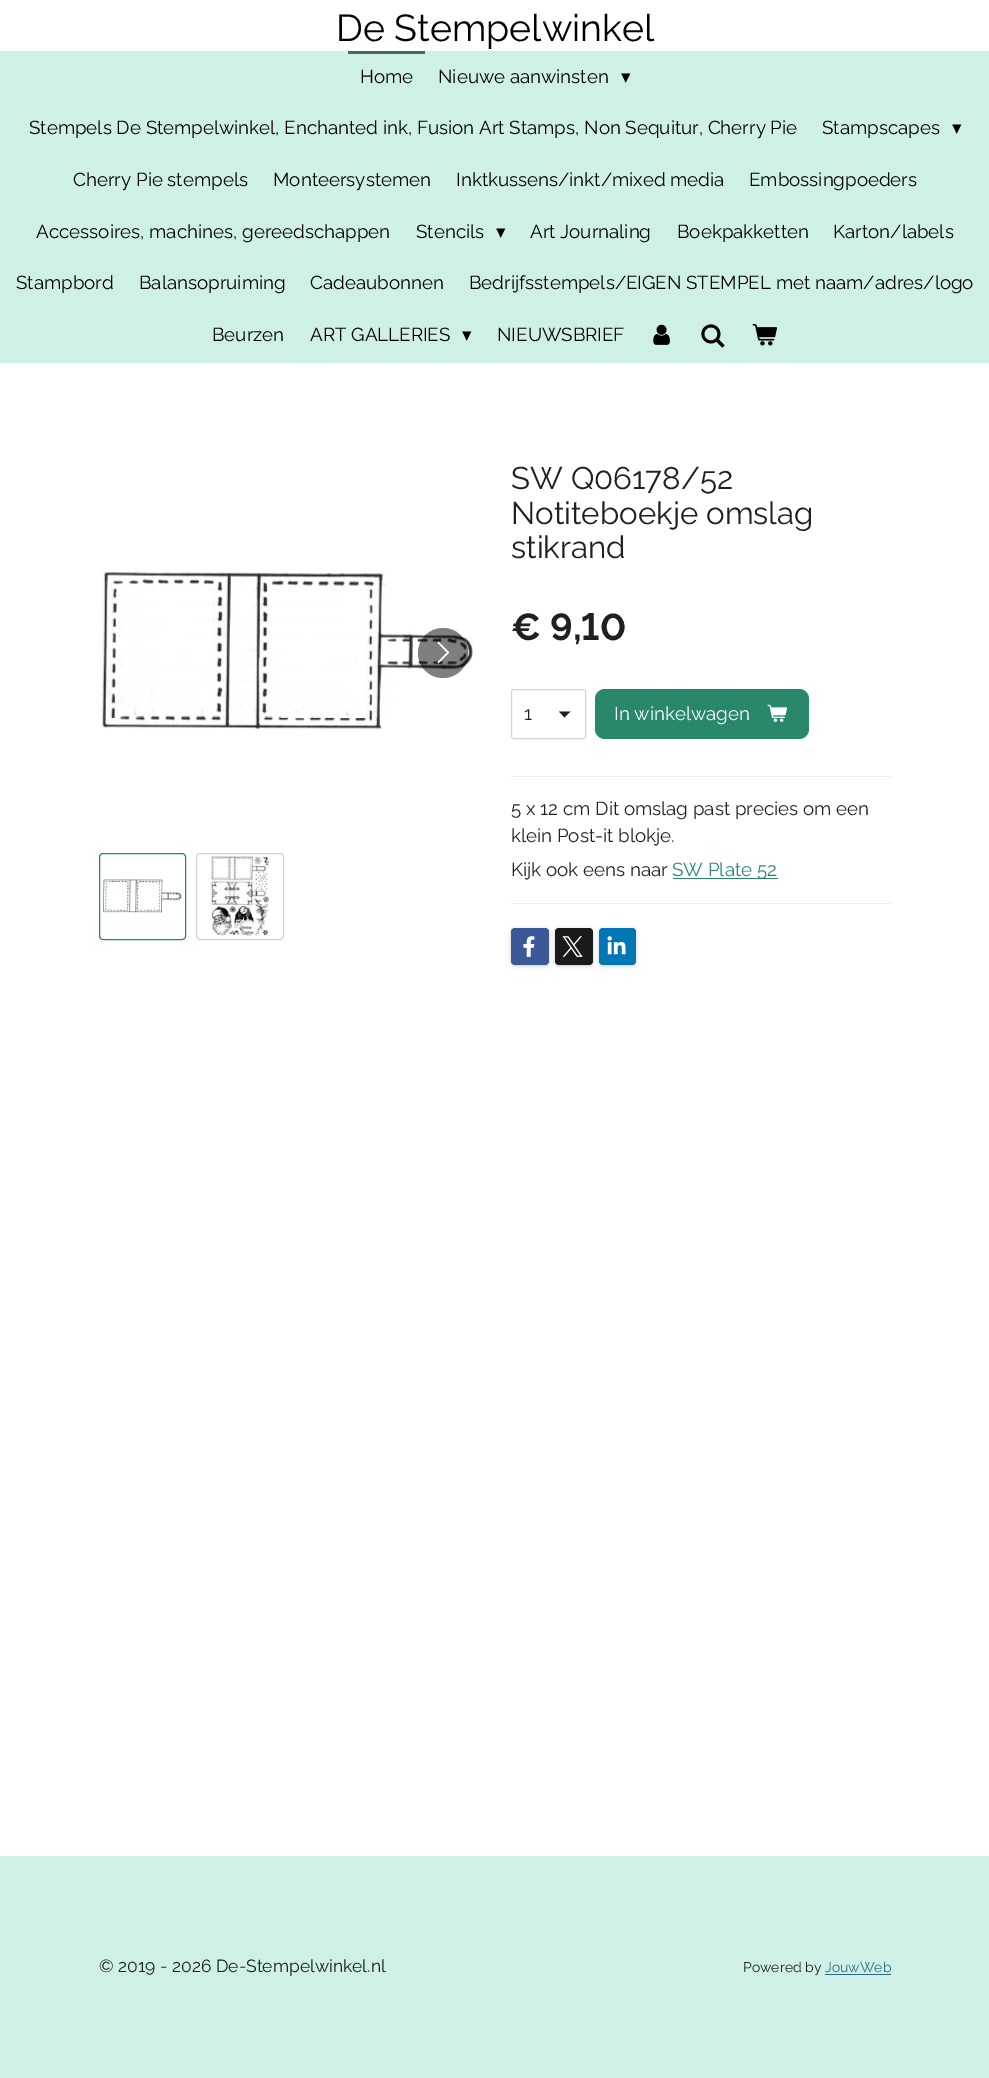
%!PS
<< /PageSize [989 2078] /PageUsesTransparency true >> setpagedevice
/rgb { 3 { 255 div 3 1 roll } repeat setrgbcolor } def
/font { [ exch dup neg 0 0 3 -1 roll 0 0 ] selectfont } def
/text { moveto show } def
/alpha { dup .setfillconstantalpha .setstrokeconstantalpha } def
/circle { newpath 0 360 arc closepath } def
/roundrect { 5 dict begin { /r /h /w /y /x } { exch def } forall
  x r add y moveto x w add y 2 copy h add r arct x w add y h add x 1 index r arct
  x y h add x y r arct x y 2 copy exch w add exch r arct closepath end } def
/shadow { 12 dict begin { /a /b /q /h /w /y /x } { exch def } forall gsave /was 0 def
  9 -2 -9 { dup b mul 4 div /e exch def 1 sub .425 mul 2.718 exch exp 1 add a .99 .min exch div /now exch def
    1 1 now sub 1 was sub div sub alpha /was now def
    w h .min e 2 mul add 0 gt { x e sub y e sub w e 2 mul add h e 2 mul add
      q e add b .6 mul add w h .min 2 div e add .min 0 .max roundrect fill } if } for grestore end } def
/picture { 5 dict begin { /h /w /y /x /name } { exch def } forall
  gsave x y translate w h scale
  w h 8 [w 0 0 h 0 0] name (r) file false 3 colorimage grestore end } def
0 .pushpdf14devicefilter
0 2078 translate 1 -1 scale
4 setmiterlimit
255 255 255 rgb
0 0 989 2078 rectfill
206 240 230 rgb
0 51 989 312 rectfill
75 103 95 rgb
348 51 77 3 rectfill
(img_01.rgb) 653 324 17 21 picture
(img_02.rgb) 701 324 24 24 picture
(img_03.rgb) 752 323 25 23 picture
(img_04.rgb) 101 571 372 159 picture
0.5 alpha
0 0 0 rgb
443 653 25 circle fill
1 alpha
(img_05.rgb) 437 641 13 23 picture
41 135 107 rgb
99.5 853.5 86 86 3.5 roundrect stroke
(img_06.rgb) 103 879 79 34 picture
210 210 210 rgb
196.5 853.5 87 86 3.5 roundrect stroke
(img_07.rgb) 211 856 58 81 picture
32 32 32 rgb
564.5 717.5 moveto -5.5 -6 rlineto 11.5 0 rlineto closepath fill
211 211 211 rgb
511.5 689.5 74 49 2 roundrect stroke
41 135 107 rgb
595 689 214 50 10 roundrect fill
(img_08.rgb) 767 704 20 18 picture
239 239 239 rgb
511 776 380 1 rectfill
41 135 107 rgb
673 878 105 1 rectfill
239 239 239 rgb
511 903 380 1 rectfill
0 0 0 rgb
511 929 38 37 4 2 0.2 shadow
59 89 152 rgb
511 928 38 37 4 roundrect fill
(img_09.rgb) 523 936 12 21 picture
0 0 0 rgb
555 929 38 37 4 2 0.2 shadow
26 26 26 rgb
555 928 38 37 4 roundrect fill
(img_10.rgb) 562 936 21 21 picture
0 0 0 rgb
599 929 37 37 4 2 0.2 shadow
0 119 181 rgb
599 928 37 37 4 roundrect fill
(img_11.rgb) 607 936 19 19 picture
206 240 230 rgb
0 1856 989 222 rectfill
41 111 135 rgb
825 1974 66 1 rectfill
/Raleway-Regular 37.5 font
0 0 0 rgb
(De Stempelwinkel) 336 41 text
/Raleway-Regular 18.75 font
(Home) 360 83 text
(Nieuwe aanwinsten) 438 83 text
/DejaVuSans-Regular 18.75 font
(▾) 621 83 text
/Raleway-Regular 18.75 font
(Stempels De Stempelwinkel, Enchanted ink, Fusion Art Stamps, Non Sequitur, Cherry Pie) 29 134 text
(Stampscapes) 822 134 text
/DejaVuSans-Regular 18.75 font
(▾) 952 134 text
/Raleway-Regular 18.75 font
(Cherry Pie stempels) 73 186 text
(Monteersystemen) 273 186 text
(Inktkussens/inkt/mixed media) 456 186 text
(Embossingpoeders) 749 186 text
(Accessoires, machines, gereedschappen) 36 238 text
(Stencils) 416 238 text
/DejaVuSans-Regular 18.75 font
(▾) 496 238 text
/Raleway-Regular 18.75 font
(Art Journaling) 530 238 text
(Boekpakketten) 677 238 text
(Karton/labels) 833 238 text
(Stampbord) 16 289 text
(Balansopruiming) 139 289 text
(Cadeaubonnen) 310 289 text
(Bedrijfsstempels/EIGEN STEMPEL met naam/adres/logo) 469 289 text
(Beurzen) 212 341 text
(ART GALLERIES) 310 341 text
/DejaVuSans-Regular 18.75 font
(▾) 462 341 text
/Raleway-Regular 18.75 font
(NIEUWSBRIEF) 497 341 text
/Raleway-Regular 31.25 font
32 32 32 rgb
(SW Q06178/52) 511 489 text
(Notiteboekje omslag) 511 524 text
(stikrand) 511 558 text
/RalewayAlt-Bold 37.5 font
(€ 9,10) 511 640 text
/Raleway-Regular 18.75 font
(1) 524 720 text
255 255 255 rgb
(In winkelwagen) 614 720 text
32 32 32 rgb
(5 x 12 cm Dit omslag past precies om een) 511 815 text
(klein Post-it blokje.) 511 842 text
(Kijk ook eens naar) 511 876 text
41 135 107 rgb
(SW Plate 52) 672 876 text
/Raleway-Regular 17.5 font
32 32 32 rgb
(© 2019 - 2026 De-Stempelwinkel.nl) 99 1972 text
/Raleway-Regular 14 font
(Powered by) 743 1972 text
41 111 135 rgb
(JouwWeb) 825 1972 text
.poppdf14devicefilter showpage
